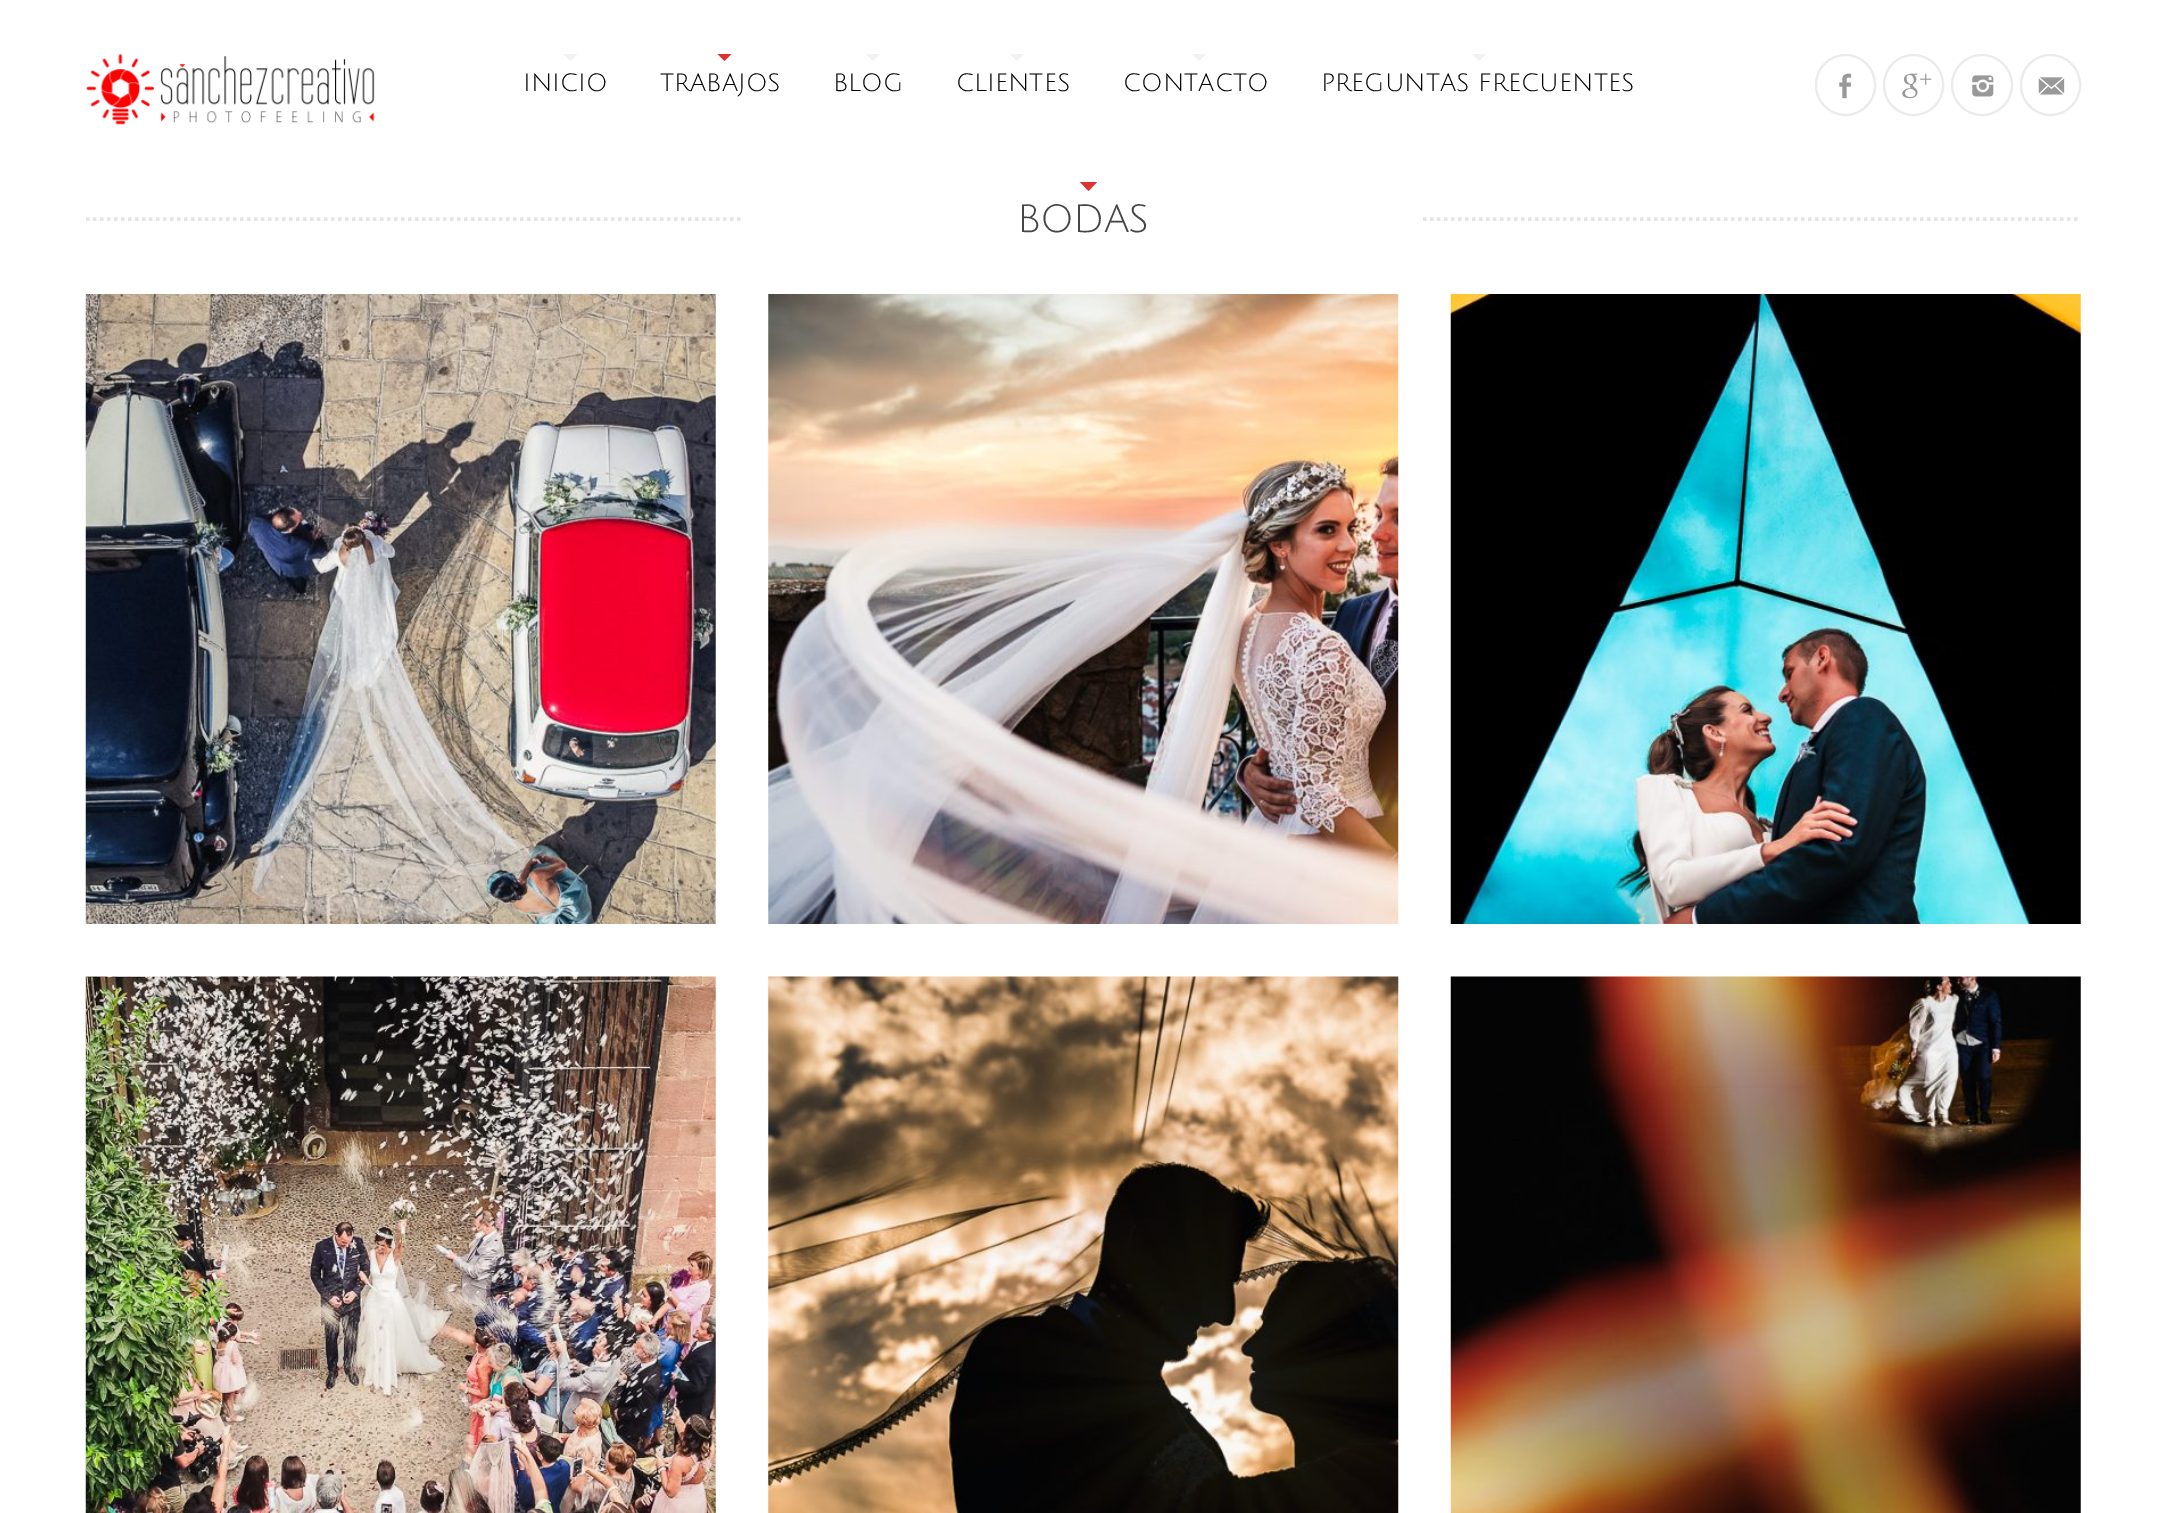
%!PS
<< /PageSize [2165 1513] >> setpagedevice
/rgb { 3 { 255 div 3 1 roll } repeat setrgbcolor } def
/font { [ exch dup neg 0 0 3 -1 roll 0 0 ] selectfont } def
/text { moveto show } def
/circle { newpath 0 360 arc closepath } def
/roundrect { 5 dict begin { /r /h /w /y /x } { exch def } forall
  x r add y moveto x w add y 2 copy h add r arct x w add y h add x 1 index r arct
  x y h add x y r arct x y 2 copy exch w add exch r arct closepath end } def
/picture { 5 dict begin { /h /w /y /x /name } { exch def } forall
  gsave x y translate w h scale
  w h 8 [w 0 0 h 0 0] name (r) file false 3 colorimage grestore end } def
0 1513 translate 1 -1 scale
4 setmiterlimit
255 255 255 rgb
0 0 2165 1513 rectfill
(img_01.rgb) 86 54 289 71 picture
242 242 242 rgb
563.5 54 moveto 14 0 rlineto -7 7 rlineto closepath fill
221 51 51 rgb
717.5 54 moveto 14 0 rlineto -7 7 rlineto closepath fill
242 242 242 rgb
866 54 moveto 14 0 rlineto -7 7 rlineto closepath fill
1010 54 moveto 14 0 rlineto -7 7 rlineto closepath fill
1192 54 moveto 14 0 rlineto -7 7 rlineto closepath fill
1472 54 moveto 14 0 rlineto -7 7 rlineto closepath fill
235 235 235 rgb
2 setlinewidth
1816 55 59 60 29.5 roundrect stroke
(img_02.rgb) 1839 73 13 26 picture
1884 55 59 60 29.5 roundrect stroke
(img_03.rgb) 1902 73 30 26 picture
1982 85 30 circle stroke
(img_04.rgb) 1972 75 22 22 picture
2021 55 59 60 29.5 roundrect stroke
(img_05.rgb) 2038 77 27 18 picture
230 230 230 rgb
3.5 setlinewidth
[3.5 3.5] 0 setdash
86 219 moveto 658 0 rlineto stroke
221 51 51 rgb
1080 182 moveto 17 0 rlineto -8.5 9 rlineto closepath fill
230 230 230 rgb
1423 219 moveto 658 0 rlineto stroke
(img_06.rgb) 85 294 631 630 picture
(img_07.rgb) 768 294 631 630 picture
(img_08.rgb) 1450 294 631 630 picture
(img_09.rgb) 85 976 631 537 picture
(img_10.rgb) 768 976 631 537 picture
(img_11.rgb) 1450 976 631 537 picture
/JuliusSansOne-Regular 24.5 font
0 0 0 rgb
(INICIO) 523 91 text
(TRABAJOS) 660 91 text
(BLOG) 833 91 text
(CLIENTES) 956 91 text
(CONTACTO) 1123 91 text
(PREGUNTAS FRECUENTES) 1321 91 text
/JuliusSansOne-Regular 38.5 font
68 68 68 rgb
1017 232 moveto -1 0 (BODAS) ashow
showpage
